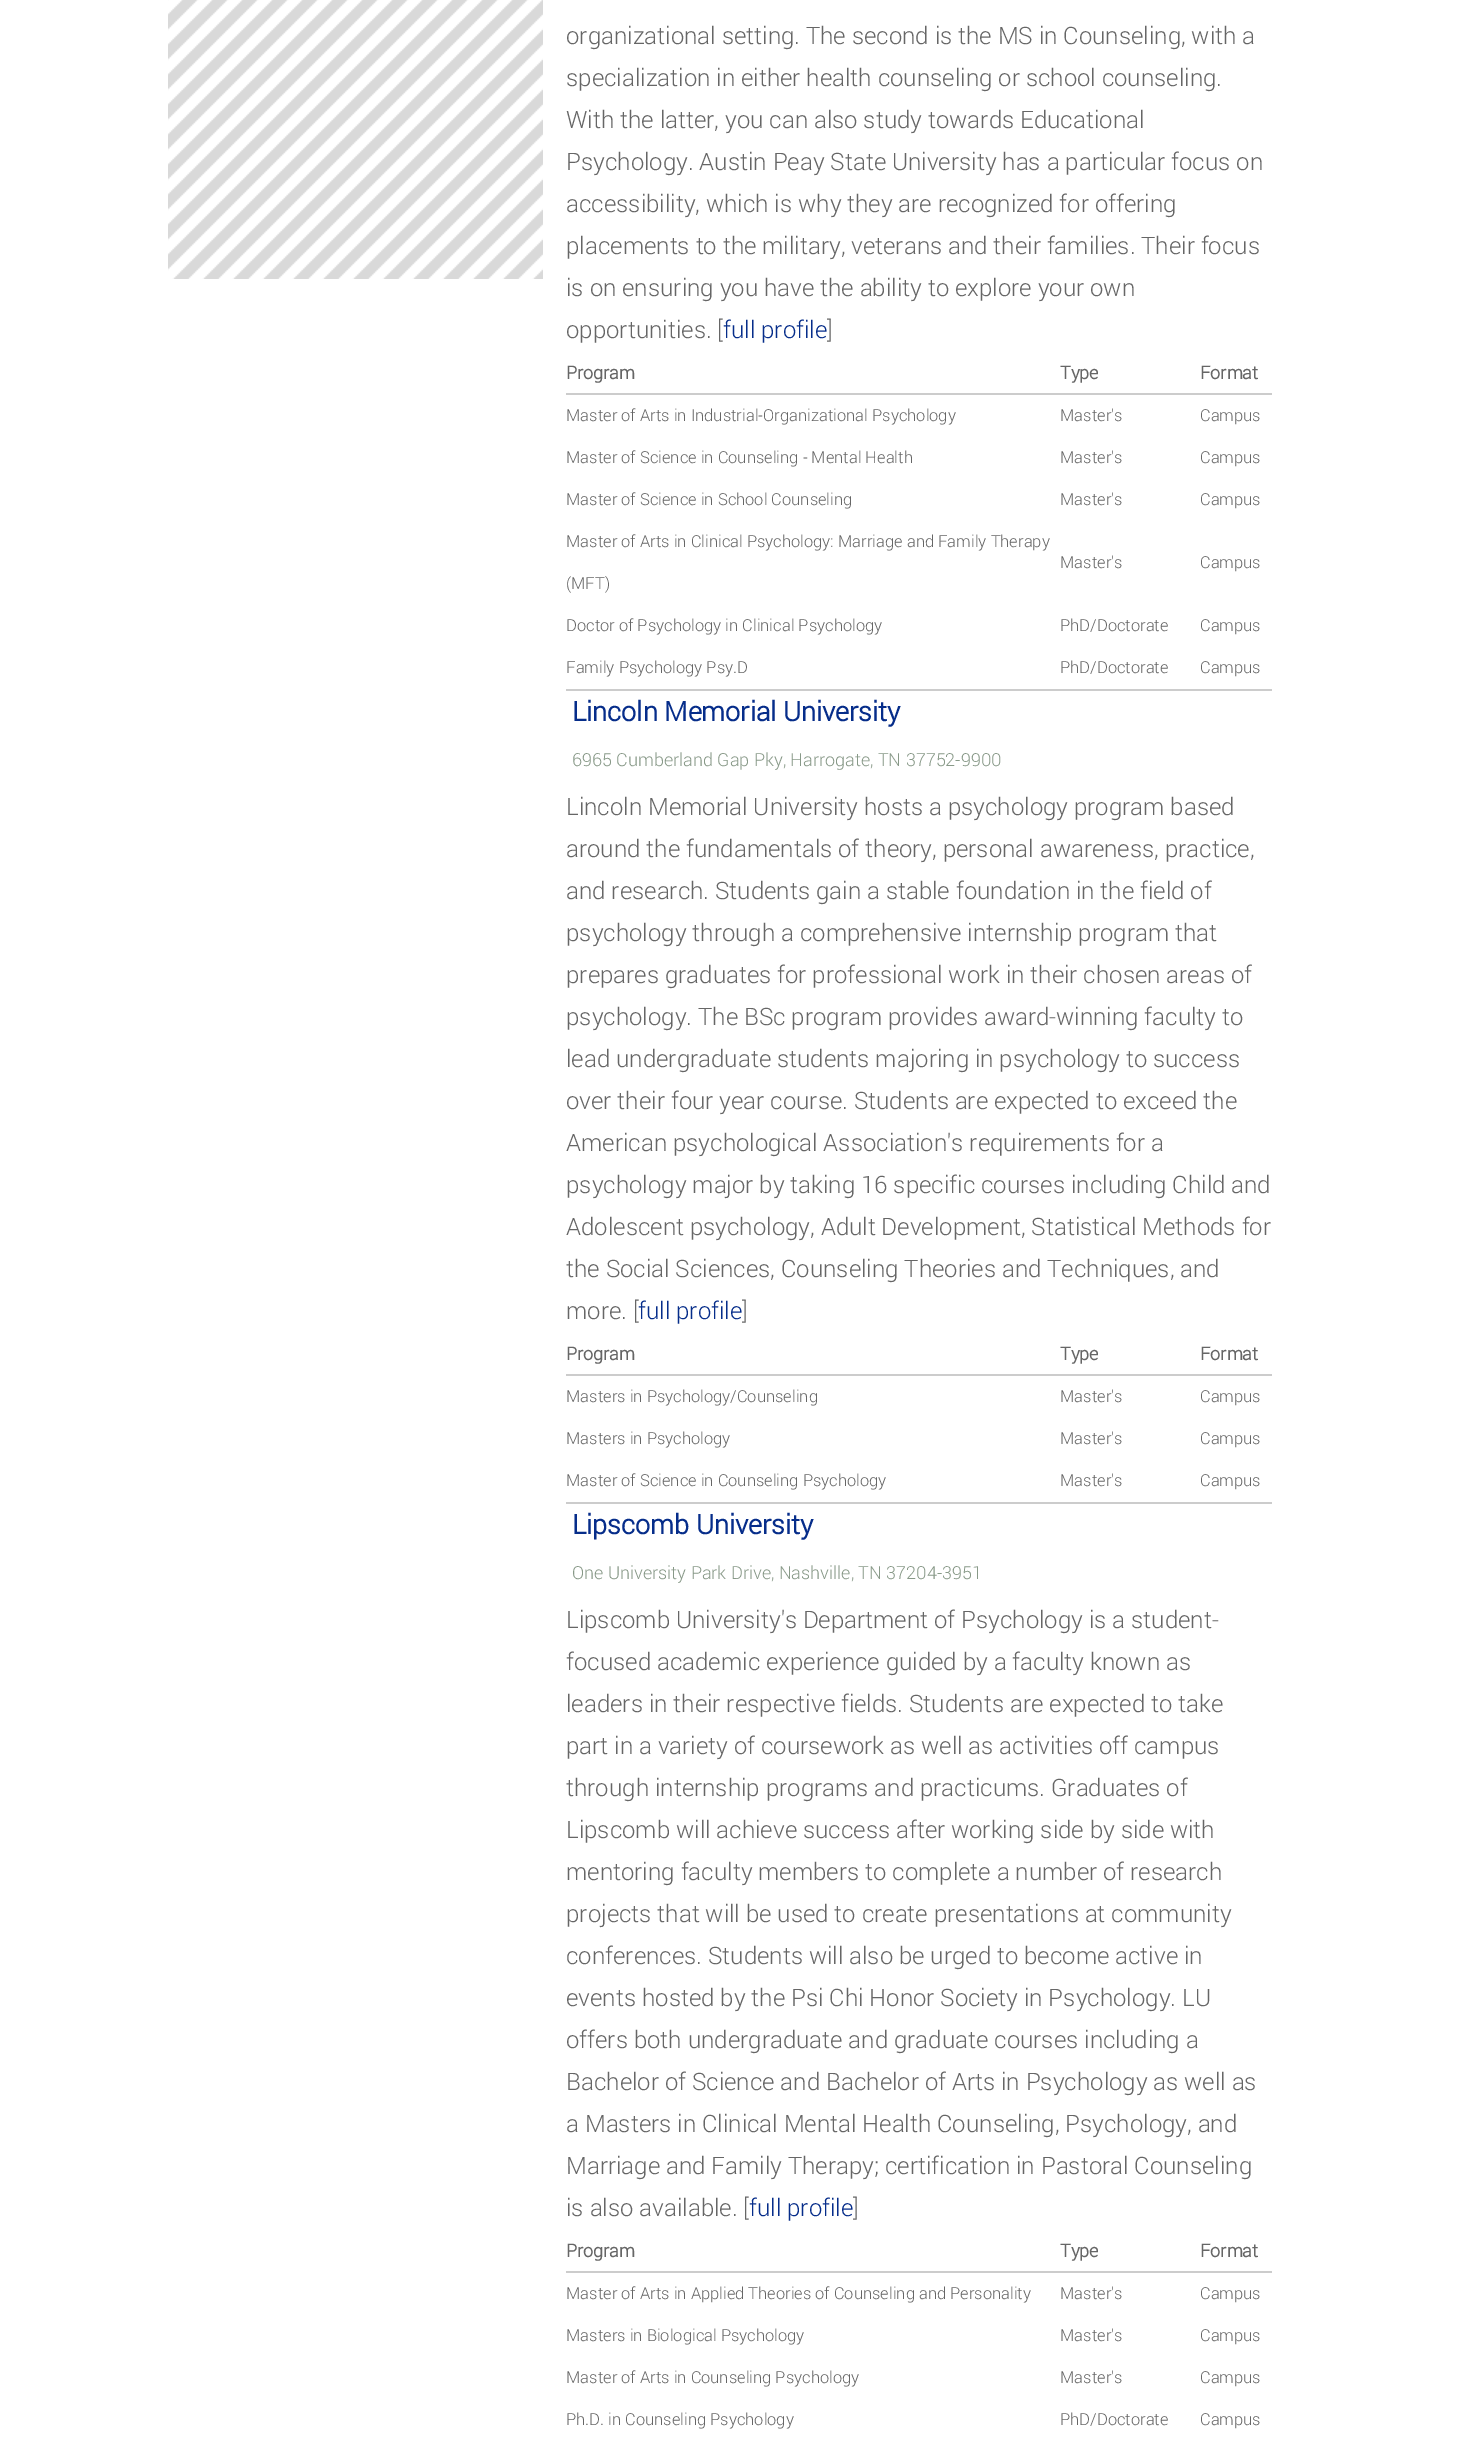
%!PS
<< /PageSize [1460 2450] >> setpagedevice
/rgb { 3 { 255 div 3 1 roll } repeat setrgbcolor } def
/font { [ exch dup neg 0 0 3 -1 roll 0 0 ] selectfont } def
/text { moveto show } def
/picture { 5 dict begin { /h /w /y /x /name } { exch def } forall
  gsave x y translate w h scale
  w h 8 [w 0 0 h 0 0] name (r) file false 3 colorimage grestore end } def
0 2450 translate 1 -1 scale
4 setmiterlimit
255 255 255 rgb
0 0 1460 2450 rectfill
(img_01.rgb) 168 0 375 279 picture
204 204 204 rgb
566 689 706 2 rectfill
566 393 706 2 rectfill
566 1502 706 2 rectfill
566 1374 706 2 rectfill
566 2271 706 2 rectfill
/Roboto-Light 24 font
102 102 102 rgb
(organizational setting. The second is the MS in Counseling, with a) 566 44 text
(specialization in either health counseling or school counseling.) 566 86 text
(With the latter, you can also study towards Educational) 566 128 text
(Psychology. Austin Peay State University has a particular focus on) 566 170 text
(accessibility, which is why they are recognized for offering) 566 212 text
(placements to the military, veterans and their families. Their focus) 566 254 text
(is on ensuring you have the ability to explore your own) 566 296 text
(opportunities. [) 566 338 text
6 45 138 rgb
(full profile) 723 338 text
102 102 102 rgb
(]) 827 338 text
/Roboto-Bold 18 font
(Program) 566 379 text
(Type) 1060 379 text
(Format) 1200 379 text
/Roboto-Light 16.5 font
(Master of Arts in Industrial-Organizational Psychology) 566 421 text
(Master's) 1060 421 text
(Campus) 1200 421 text
(Master of Science in Counseling - Mental Health) 566 463 text
(Master's) 1060 463 text
(Campus) 1200 463 text
(Master of Science in School Counseling) 566 505 text
(Master's) 1060 505 text
(Campus) 1200 505 text
(Master of Arts in Clinical Psychology: Marriage and Family Therapy) 566 547 text
(\(MFT\)) 566 589 text
(Master's) 1060 568 text
(Campus) 1200 568 text
(Doctor of Psychology in Clinical Psychology) 566 631 text
(PhD/Doctorate) 1060 631 text
(Campus) 1200 631 text
(Family Psychology Psy.D) 566 673 text
(PhD/Doctorate) 1060 673 text
(Campus) 1200 673 text
/Roboto-Bold 27 font
6 45 138 rgb
(Lincoln Memorial University) 572 721 text
/Roboto-Light 18 font
136 153 136 rgb
(6965 Cumberland Gap Pky, Harrogate, TN 37752-9900) 572 766 text
/Roboto-Light 24 font
102 102 102 rgb
(Lincoln Memorial University hosts a psychology program based) 566 815 text
(around the fundamentals of theory, personal awareness, practice,) 566 857 text
(and research. Students gain a stable foundation in the field of) 566 899 text
(psychology through a comprehensive internship program that) 566 941 text
(prepares graduates for professional work in their chosen areas of) 566 983 text
(psychology. The BSc program provides award-winning faculty to) 566 1025 text
(lead undergraduate students majoring in psychology to success) 566 1067 text
(over their four year course. Students are expected to exceed the) 566 1109 text
(American psychological Association's requirements for a) 566 1151 text
(psychology major by taking 16 specific courses including Child and) 566 1193 text
(Adolescent psychology, Adult Development, Statistical Methods for) 566 1235 text
(the Social Sciences, Counseling Theories and Techniques, and) 566 1277 text
(more. [) 566 1319 text
6 45 138 rgb
(full profile) 638 1319 text
102 102 102 rgb
(]) 742 1319 text
/Roboto-Bold 18 font
(Program) 566 1360 text
(Type) 1060 1360 text
(Format) 1200 1360 text
/Roboto-Light 16.5 font
(Masters in Psychology/Counseling) 566 1402 text
(Master's) 1060 1402 text
(Campus) 1200 1402 text
(Masters in Psychology) 566 1444 text
(Master's) 1060 1444 text
(Campus) 1200 1444 text
(Master of Science in Counseling Psychology) 566 1486 text
(Master's) 1060 1486 text
(Campus) 1200 1486 text
/Roboto-Bold 27 font
6 45 138 rgb
(Lipscomb University) 572 1534 text
/Roboto-Light 18 font
136 153 136 rgb
(One University Park Drive, Nashville, TN 37204-3951) 572 1579 text
/Roboto-Light 24 font
102 102 102 rgb
(Lipscomb University's Department of Psychology is a student-) 566 1628 text
(focused academic experience guided by a faculty known as) 566 1670 text
(leaders in their respective fields. Students are expected to take) 566 1712 text
(part in a variety of coursework as well as activities off campus) 566 1754 text
(through internship programs and practicums. Graduates of) 566 1796 text
(Lipscomb will achieve success after working side by side with) 566 1838 text
(mentoring faculty members to complete a number of research) 566 1880 text
(projects that will be used to create presentations at community) 566 1922 text
(conferences. Students will also be urged to become active in) 566 1964 text
(events hosted by the Psi Chi Honor Society in Psychology. LU) 566 2006 text
(offers both undergraduate and graduate courses including a) 566 2048 text
(Bachelor of Science and Bachelor of Arts in Psychology as well as) 566 2090 text
(a Masters in Clinical Mental Health Counseling, Psychology, and) 566 2132 text
(Marriage and Family Therapy; certification in Pastoral Counseling) 566 2174 text
(is also available. [) 566 2216 text
6 45 138 rgb
(full profile) 749 2216 text
102 102 102 rgb
(]) 853 2216 text
/Roboto-Bold 18 font
(Program) 566 2257 text
(Type) 1060 2257 text
(Format) 1200 2257 text
/Roboto-Light 16.5 font
(Master of Arts in Applied Theories of Counseling and Personality) 566 2299 text
(Master's) 1060 2299 text
(Campus) 1200 2299 text
(Masters in Biological Psychology) 566 2341 text
(Master's) 1060 2341 text
(Campus) 1200 2341 text
(Master of Arts in Counseling Psychology) 566 2383 text
(Master's) 1060 2383 text
(Campus) 1200 2383 text
(Ph.D. in Counseling Psychology) 566 2425 text
(PhD/Doctorate) 1060 2425 text
(Campus) 1200 2425 text
showpage
